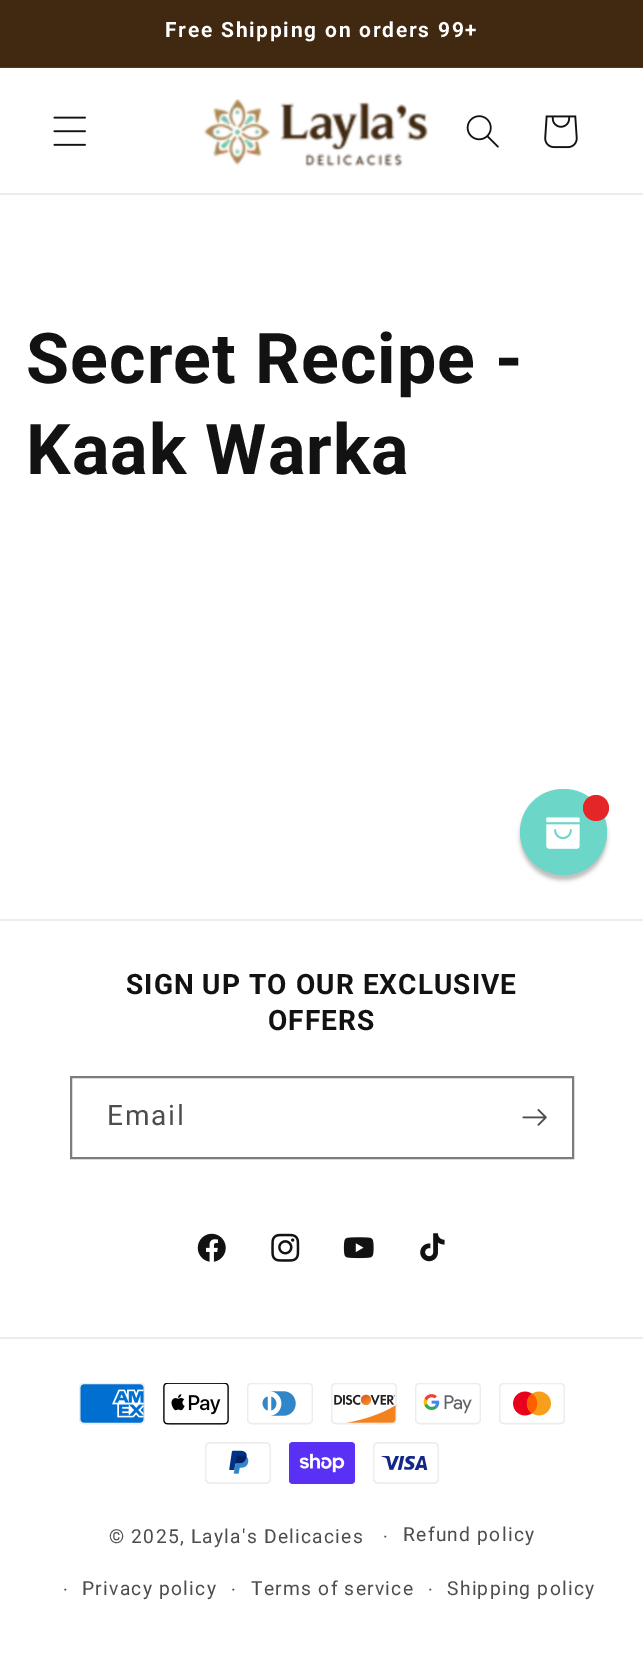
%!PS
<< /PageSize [643 1664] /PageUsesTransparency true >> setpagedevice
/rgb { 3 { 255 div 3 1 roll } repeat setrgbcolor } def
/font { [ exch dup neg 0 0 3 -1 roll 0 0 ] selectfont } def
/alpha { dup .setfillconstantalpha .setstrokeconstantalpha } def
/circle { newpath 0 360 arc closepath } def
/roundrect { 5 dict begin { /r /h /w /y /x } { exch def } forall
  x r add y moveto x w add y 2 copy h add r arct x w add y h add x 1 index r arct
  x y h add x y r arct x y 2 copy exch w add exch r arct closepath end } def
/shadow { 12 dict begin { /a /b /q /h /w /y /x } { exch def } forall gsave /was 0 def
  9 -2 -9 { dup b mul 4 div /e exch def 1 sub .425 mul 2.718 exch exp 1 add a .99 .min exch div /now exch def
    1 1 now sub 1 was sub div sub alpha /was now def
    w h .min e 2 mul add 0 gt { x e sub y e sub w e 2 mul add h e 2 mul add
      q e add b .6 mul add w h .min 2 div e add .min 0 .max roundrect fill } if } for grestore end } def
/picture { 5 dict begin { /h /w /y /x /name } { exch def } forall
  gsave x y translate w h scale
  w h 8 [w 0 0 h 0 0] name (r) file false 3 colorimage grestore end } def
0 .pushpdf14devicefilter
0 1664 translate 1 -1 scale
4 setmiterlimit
255 255 255 rgb
0 0 643 1664 rectfill
64 40 17 rgb
0 0 643 67 rectfill
79 57 36 rgb
0 67 643 1 rectfill
236 236 236 rgb
0 193 643 2 rectfill
(img_01.rgb) 53 116 33 30 picture
(img_02.rgb) 204 99 224 68 picture
(img_03.rgb) 466 115 33 33 picture
(img_04.rgb) 544 115 34 34 picture
0 0 0 rgb
520 793 87 87 43.5 2 0.25 shadow
108 214 201 rgb
520 789 87 86 43 roundrect fill
228 38 38 rgb
596 808 13 circle fill
(img_05.rgb) 546 817 34 32 picture
236 236 236 rgb
0 919 643 2 rectfill
125 125 125 rgb
2 setlinewidth
71 1077 502 81 rectstroke
(img_06.rgb) 522 1109 25 17 picture
(img_07.rgb) 197 1233 29 29 picture
(img_08.rgb) 271 1233 29 29 picture
(img_09.rgb) 343 1237 31 22 picture
(img_10.rgb) 420 1233 25 29 picture
236 236 236 rgb
0 1337 643 2 rectfill
(img_11.rgb) 79 1383 66 42 picture
(img_12.rgb) 163 1383 66 42 picture
(img_13.rgb) 247 1383 66 42 picture
(img_14.rgb) 331 1383 66 42 picture
(img_15.rgb) 415 1383 66 42 picture
(img_16.rgb) 499 1383 66 42 picture
(img_17.rgb) 205 1442 66 42 picture
(img_18.rgb) 289 1442 66 42 picture
(img_19.rgb) 373 1442 66 42 picture
/Roboto-Bold 21 font
255 255 255 rgb
165 37 moveto 1.75 0 (Free Shipping on orders 99+) ashow
/Roboto-Bold 70 font
18 18 18 rgb
26 383 moveto 1.05 0 (Secret Recipe -) ashow
26 474 moveto 1.05 0 (Kaak Warka) ashow
/Roboto-Bold 28 font
126 994 moveto 1.05 0 (SIGN UP TO OUR EXCLUSIVE) ashow
268 1030 moveto 1.05 0 (OFFERS) ashow
/Roboto-Regular 28 font
77 77 77 rgb
107 1125 moveto 1.75 0 (Email) ashow
/Roboto-Regular 18 font
383 1543 moveto 1.25 0 (·) ashow
/Roboto-Regular 19.25 font
403 1541 moveto 1.25 0 (Refund policy) ashow
/Roboto-Regular 18 font
63 1596 moveto 1.25 0 (·) ashow
/Roboto-Regular 19.25 font
82 1595 moveto 1.25 0 (Privacy policy) ashow
/Roboto-Regular 18 font
231 1596 moveto 1.25 0 (·) ashow
/Roboto-Regular 19.25 font
251 1595 moveto 1.25 0 (Terms of service) ashow
/Roboto-Regular 18 font
428 1596 moveto 1.25 0 (·) ashow
/Roboto-Regular 19.25 font
447 1595 moveto 1.25 0 (Shipping policy) ashow
109 1543 moveto 1.25 0 (© 2025, Layla's Delicacies) ashow
.poppdf14devicefilter showpage
